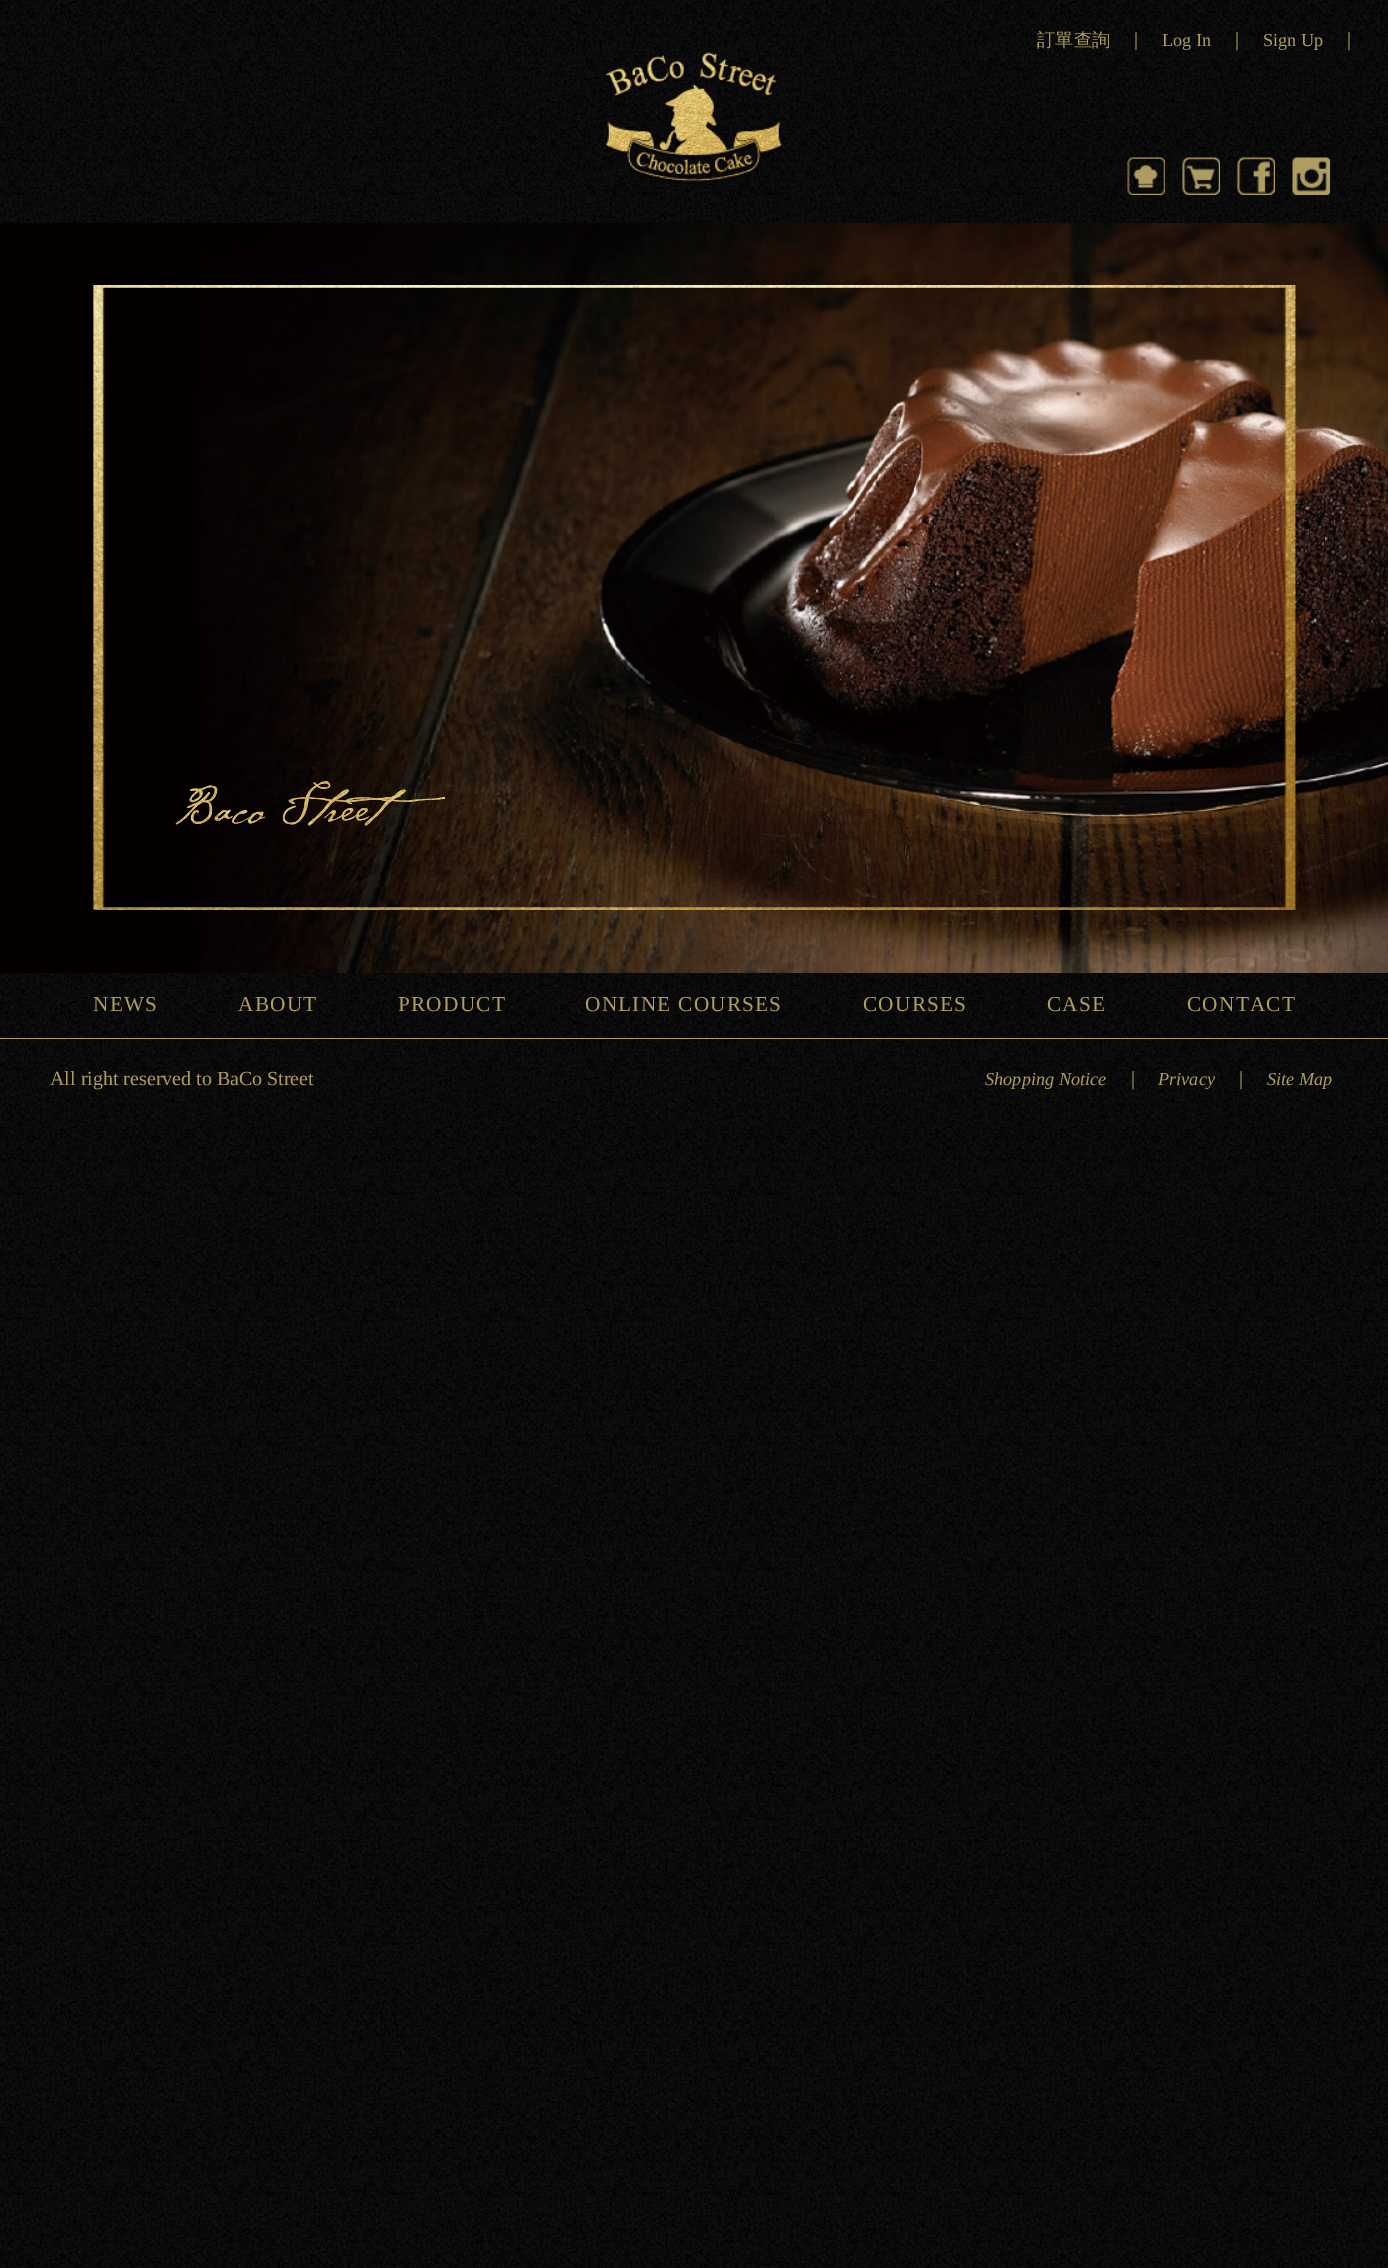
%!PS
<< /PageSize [1388 2268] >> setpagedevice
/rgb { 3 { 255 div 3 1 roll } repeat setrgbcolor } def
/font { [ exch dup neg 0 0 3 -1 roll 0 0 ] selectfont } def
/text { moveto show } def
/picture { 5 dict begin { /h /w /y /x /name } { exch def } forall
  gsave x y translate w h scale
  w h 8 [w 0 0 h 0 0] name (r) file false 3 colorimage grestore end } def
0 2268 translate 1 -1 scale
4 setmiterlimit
255 255 255 rgb
0 0 1388 2268 rectfill
(img_01.rgb) 0 0 1388 2268 picture
(img_02.rgb) 606 52 177 132 picture
(img_03.rgb) 1127 157 38 38 picture
(img_04.rgb) 1182 157 38 38 picture
(img_05.rgb) 1237 157 38 38 picture
(img_06.rgb) 1292 157 38 38 picture
(img_07.rgb) 0 223 1388 750 picture
(img_08.rgb) 93 285 1203 625 picture
(img_09.rgb) 175 781 270 45 picture
(img_10.rgb) 93 285 1203 625 picture
(img_11.rgb) 175 781 270 45 picture
175 157 95 rgb
0 1038 1388 1 rectfill
/WenQuanYiZenHei-Medium 18.25 font
(訂單查詢) 1037 46 text
/LiberationSerif-Regular 20 font
(|) 1134 46 text
/LiberationSerif-Regular 18.25 font
(Log In) 1162 46 text
/LiberationSerif-Regular 20 font
(|) 1235 46 text
/LiberationSerif-Regular 18.25 font
(Sign Up) 1263 46 text
/LiberationSerif-Regular 20 font
(|) 1347 46 text
/LiberationSerif-Regular 21.25 font
93 1011 moveto 1.25 0 (NEWS) ashow
238 1011 moveto 1.25 0 (ABOUT) ashow
398 1011 moveto 1.25 0 (PRODUCT) ashow
585 1011 moveto 1.25 0 (ONLINE COURSES) ashow
863 1011 moveto 1.25 0 (COURSES) ashow
1047 1011 moveto 1.25 0 (CASE) ashow
1187 1011 moveto 1.25 0 (CONTACT) ashow
/LiberationSerif-Regular 20 font
(All right reserved to BaCo Street) 50 1085 text
/LiberationSerif-Italic 18.25 font
(Shopping Notice) 985 1085 text
/LiberationSerif-Regular 20 font
(|) 1131 1085 text
/LiberationSerif-Italic 18.25 font
(Privacy) 1158 1085 text
/LiberationSerif-Regular 20 font
(|) 1239 1085 text
/LiberationSerif-Italic 18.25 font
(Site Map) 1267 1085 text
showpage
